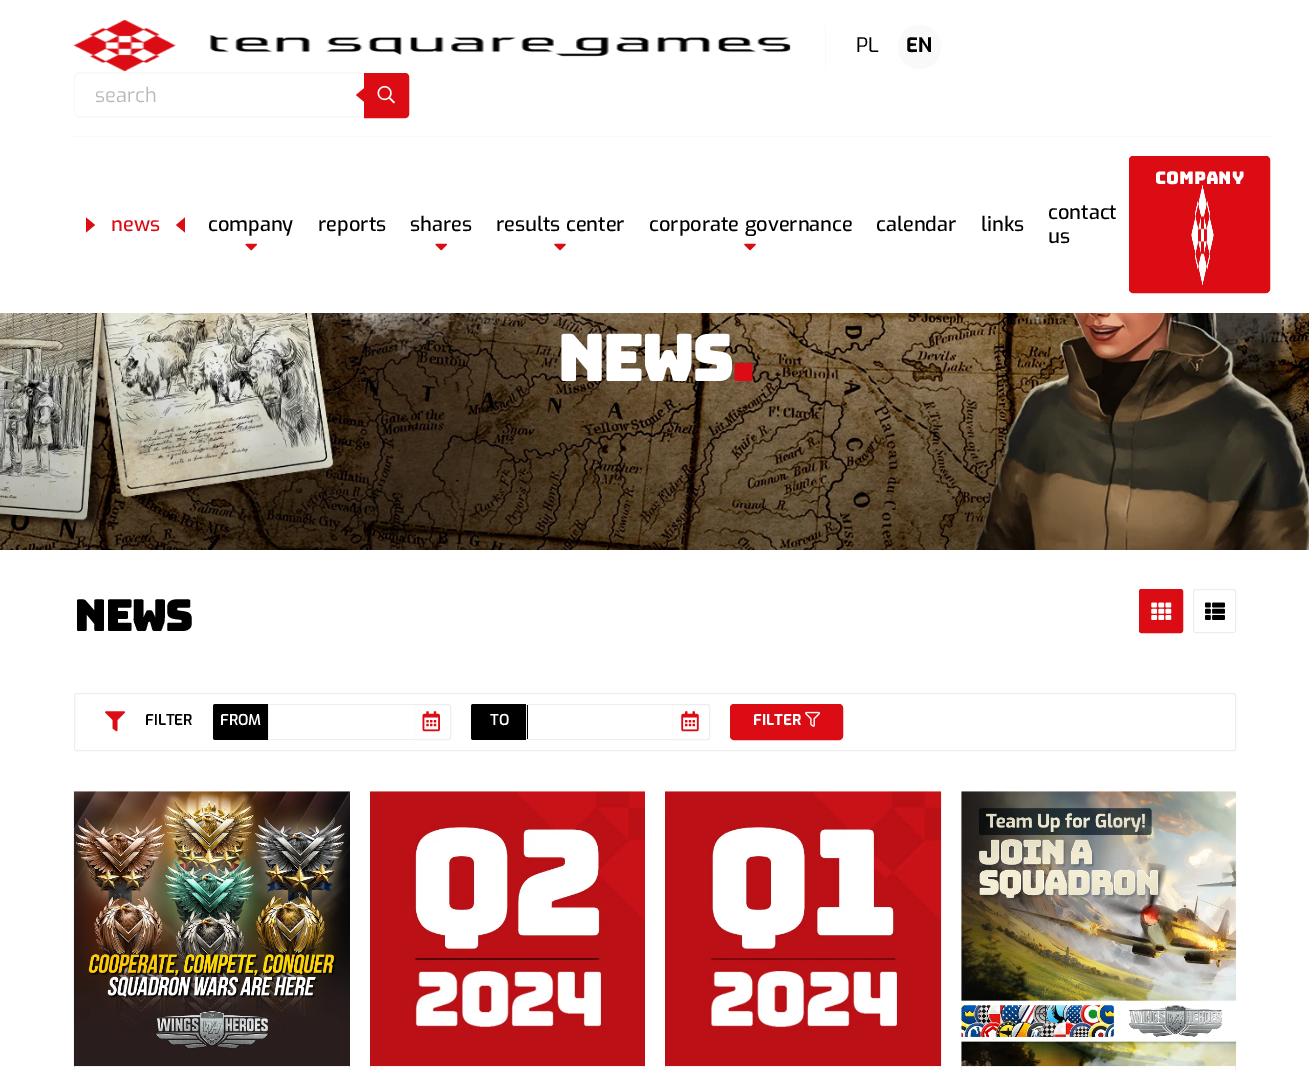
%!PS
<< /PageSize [1309 1070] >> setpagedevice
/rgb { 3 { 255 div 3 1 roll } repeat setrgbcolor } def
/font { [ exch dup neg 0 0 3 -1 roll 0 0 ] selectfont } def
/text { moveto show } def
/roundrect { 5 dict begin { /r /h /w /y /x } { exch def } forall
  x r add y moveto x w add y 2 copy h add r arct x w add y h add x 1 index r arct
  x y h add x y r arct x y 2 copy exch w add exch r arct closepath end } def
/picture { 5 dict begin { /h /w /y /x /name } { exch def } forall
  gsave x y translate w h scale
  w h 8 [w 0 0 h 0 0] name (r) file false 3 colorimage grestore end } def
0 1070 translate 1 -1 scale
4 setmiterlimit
255 255 255 rgb
0 0 1309 1070 rectfill
(img_01.rgb) 73 20 718 52 picture
249 249 249 rgb
825 25 1 44 rectfill
898 25 43 44 21.5 roundrect fill
79 72 moveto 286 0 rlineto 0 46 rlineto -286 0 rlineto -3 0 -5 -3 -5 -6 rcurveto 0 -34 rlineto 0 -3 2 -6 5 -6 rcurveto closepath 79 74 moveto 286 0 rlineto 0 42 rlineto -286 0 rlineto -2 0 -4 -1 -4 -4 rcurveto 0 -34 rlineto 0 -3 2 -4 4 -4 rcurveto closepath eofill
219 12 20 rgb
364.5 73.5 moveto 40.5 0 rlineto 2 0 3.5 1.5 3.5 3.5 rcurveto 0 37 rlineto 0 2 -1.5 3.5 -3.5 3.5 rcurveto -40.5 0 rlineto closepath gsave fill grestore
stroke
365 87.5 moveto 0 15 rlineto -9 -7.5 rlineto closepath fill
(img_02.rgb) 377 85 18 19 picture
249 249 249 rgb
74 136 1196 1 rectfill
219 12 20 rgb
1129.5 156.5 140 136 3.5 roundrect gsave fill grestore
stroke
(img_03.rgb) 1191 185 23 100 picture
86 232.5 moveto 0 -15 rlineto 9 7.5 rlineto closepath fill
185 217.5 moveto 0 15 rlineto -9 -7.5 rlineto closepath fill
(img_04.rgb) 245 243 12 8 picture
(img_04.rgb) 435 243 12 8 picture
(img_05.rgb) 554 243 12 8 picture
(img_05.rgb) 744 243 12 8 picture
(img_06.rgb) 0 313 1309 237 picture
1139.5 589.5 43 43 2 roundrect gsave fill grestore
stroke
(img_07.rgb) 1151 602 21 18 picture
238 238 238 rgb
1193.5 589.5 42 43 2 roundrect stroke
(img_08.rgb) 1205 602 20 18 picture
74.5 693.5 1161 57 2 roundrect stroke
(img_09.rgb) 105 711 20 21 picture
0 0 0 rgb
215.5 704 moveto 53.5 0 rlineto 0 36 rlineto -53.5 0 rlineto -1.5 0 -2.5 -1 -2.5 -2.5 rcurveto 0 -31 rlineto 0 -1.5 1 -2.5 2.5 -2.5 rcurveto closepath fill
238 238 238 rgb
413.5 704.5 moveto 35 0 rlineto 1 0 2 1 2 2 rcurveto 0 31 rlineto 0 1 -1 2 -2 2 rcurveto -35 0 rlineto closepath stroke
255 255 255 rgb
413 705 1 34 rectfill
238 238 238 rgb
268 704 150 1 rectfill
268 739 150 1 rectfill
268 704 1 36 rectfill
(img_10.rgb) 422 711 18 21 picture
0 0 0 rgb
473.5 704 moveto 54.5 0 rlineto 0 36 rlineto -54.5 0 rlineto -1.5 0 -2.5 -1 -2.5 -2.5 rcurveto 0 -31 rlineto 0 -1.5 1 -2.5 2.5 -2.5 rcurveto closepath fill
238 238 238 rgb
671.5 704.5 moveto 36 0 rlineto 1 0 2 1 2 2 rcurveto 0 31 rlineto 0 1 -1 2 -2 2 rcurveto -36 0 rlineto closepath stroke
255 255 255 rgb
671 705 1 34 rectfill
238 238 238 rgb
526 704 150 1 rectfill
526 739 150 1 rectfill
526 704 1 36 rectfill
(img_11.rgb) 681 711 18 21 picture
219 12 20 rgb
730.5 704.5 112 35 3.5 roundrect gsave fill grestore
stroke
(img_12.rgb) 805 711 15 16 picture
238 238 238 rgb
349 1066 1 4 rectfill
74 1066 1 4 rectfill
(img_13.rgb) 73 791 277 276 picture
644 1066 1 4 rectfill
370 1066 1 4 rectfill
(img_14.rgb) 370 791 275 276 picture
940 1066 1 4 rectfill
665 1066 1 4 rectfill
(img_15.rgb) 665 791 277 276 picture
1235 1066 1 4 rectfill
961 1066 1 4 rectfill
(img_16.rgb) 961 791 276 276 picture
/Exo-Regular 20 font
0 0 0 rgb
(PL) 856 52 text
/Exo-Bold 20 font
(EN) 906 52 text
/Exo-Regular 20 font
182 186 190 rgb
(search) 95 102 text
/Bungee-Regular 17.5 font
255 255 255 rgb
(COMPANY) 1155 184 text
/Exo-Medium 20 font
219 12 20 rgb
(news) 111 231 text
0 0 0 rgb
(company) 208 231 text
(reports) 318 231 text
(shares) 410 231 text
(results center) 496 231 text
(corporate governance) 649 231 text
(calendar) 876 231 text
(links) 981 231 text
(contact) 1048 219 text
(us) 1048 243 text
/Bungee-Regular 65.5 font
255 255 255 rgb
557 381 moveto -4 0 (News) ashow
219 12 20 rgb
731 381 moveto -4 0 (.) ashow
/Bungee-Regular 44 font
0 0 0 rgb
74 631 moveto -2.5 0 (news) ashow
/Exo-SemiBold 15 font
(FILTER) 145 725 text
255 255 255 rgb
(FROM) 220 725 text
(TO) 490 725 text
/Exo-Bold 15 font
(FILTER) 753 725 text
showpage
